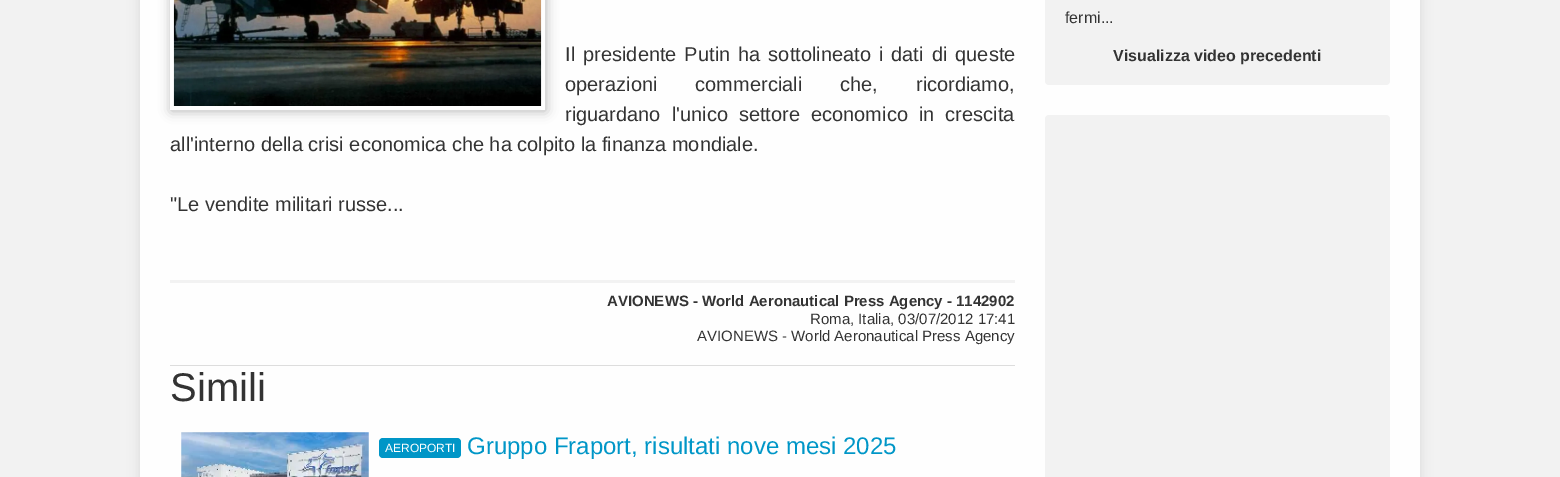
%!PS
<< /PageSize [1560 477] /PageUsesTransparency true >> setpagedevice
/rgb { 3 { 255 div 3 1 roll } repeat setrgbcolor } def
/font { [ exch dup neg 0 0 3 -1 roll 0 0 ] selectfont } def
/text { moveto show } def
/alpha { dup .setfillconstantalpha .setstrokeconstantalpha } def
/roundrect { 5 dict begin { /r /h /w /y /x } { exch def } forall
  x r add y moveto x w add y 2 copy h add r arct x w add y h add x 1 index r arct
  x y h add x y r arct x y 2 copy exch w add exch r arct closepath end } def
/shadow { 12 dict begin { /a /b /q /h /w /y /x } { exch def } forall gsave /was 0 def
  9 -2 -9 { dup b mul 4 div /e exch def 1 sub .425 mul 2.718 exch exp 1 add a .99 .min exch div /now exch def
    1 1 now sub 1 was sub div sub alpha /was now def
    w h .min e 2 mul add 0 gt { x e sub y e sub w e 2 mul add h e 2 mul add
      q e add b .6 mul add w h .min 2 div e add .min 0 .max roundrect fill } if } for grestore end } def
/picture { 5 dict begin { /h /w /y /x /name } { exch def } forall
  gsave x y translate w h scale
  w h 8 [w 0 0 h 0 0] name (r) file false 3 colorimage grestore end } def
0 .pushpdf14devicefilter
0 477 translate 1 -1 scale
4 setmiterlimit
242 242 242 rgb
0 0 1560 477 rectfill
0 0 0 rgb
140 -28 1280 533 10 6 0.1 shadow
254 254 254 rgb
140 0 1280 477 rectfill
242 242 242 rgb
1045 -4 345 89 4 roundrect fill
1045 115 345 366 4 roundrect fill
gsave
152 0 moveto 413 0 rlineto 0 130 rlineto -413 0 rlineto closepath 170 -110 moveto 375 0 rlineto 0 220 rlineto -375 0 rlineto closepath eoclip newpath
0 0 0 rgb
171 -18 375 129 0 6 0.3 shadow
grestore
(img_01.rgb) 173 0 369 106 picture
170 280 845 3 rectfill
221 221 221 rgb
170 365 845 1 rectfill
(img_02.rgb) 181 432 188 45 picture
0 150 199 rgb
379 438 82 20 4 roundrect fill
/LiberationSans-Regular 16 font
51 51 51 rgb
(fermi...) 1065 23 text
/LiberationSans-Bold 16 font
(Visualizza video precedenti) 1113 61 text
/LiberationSans-Regular 20 font
565 61 moveto 2.5 0 32 (Il presidente Putin ha sottolineato i dati di queste) widthshow
565 91 moveto 32.5 0 32 (operazioni commerciali che, ricordiamo,) widthshow
565 121 moveto 5.5 0 32 (riguardano l'unico settore economico in crescita) widthshow
(all'interno della crisi economica che ha colpito la finanza mondiale.) 170 151 text
("Le vendite militari russe...) 170 211 text
/LiberationSans-Bold 15 font
(AVIONEWS - World Aeronautical Press Agency - 1142902) 607 306 text
/LiberationSans-Regular 15 font
(Roma, Italia, 03/07/2012 17:41) 810 324 text
(AVIONEWS - World Aeronautical Press Agency) 697 341 text
/LiberationSans-Regular 40 font
(Simili) 170 401 text
/LiberationSans-Regular 12 font
255 255 255 rgb
(AEROPORTI) 385 452 text
/LiberationSans-Regular 24 font
0 150 199 rgb
(Gruppo Fraport, risultati nove mesi 2025) 467 454 text
.poppdf14devicefilter showpage
